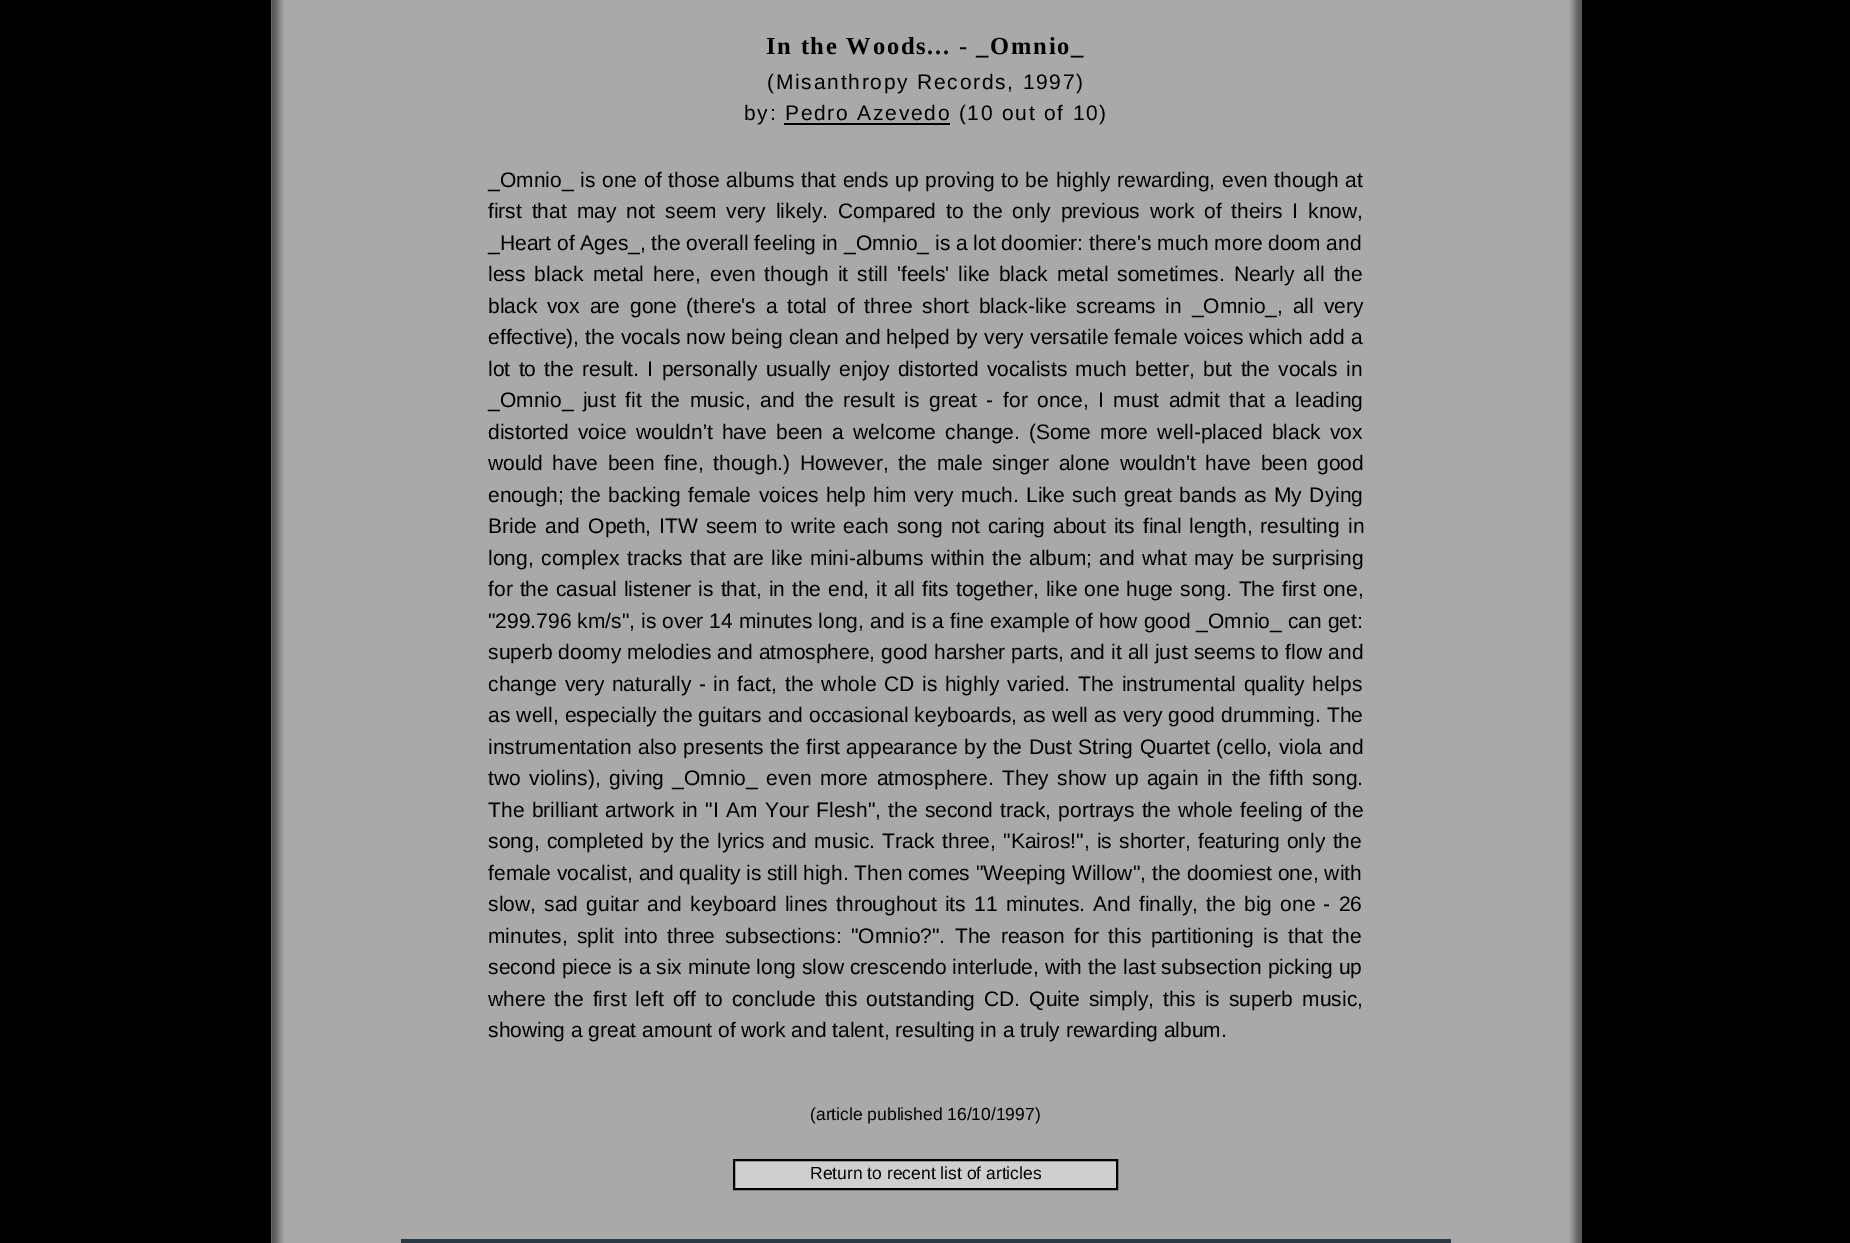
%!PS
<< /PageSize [1850 1243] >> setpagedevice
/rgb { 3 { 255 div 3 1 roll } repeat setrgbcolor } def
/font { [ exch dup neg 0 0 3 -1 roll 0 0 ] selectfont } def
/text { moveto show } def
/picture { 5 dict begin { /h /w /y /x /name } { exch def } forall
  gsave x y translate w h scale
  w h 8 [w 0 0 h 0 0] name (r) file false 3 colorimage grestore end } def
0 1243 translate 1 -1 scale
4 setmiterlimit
0 0 0 rgb
0 0 1850 1243 rectfill
(img_01.rgb) 271 0 1311 1243 picture
784 123 166 2 rectfill
207 207 207 rgb
734 1160 moveto 383 0 rlineto 0 29 rlineto -383 0 rlineto closepath gsave fill grestore
0 0 0 rgb
2 setlinewidth
stroke
42 58 69 rgb
401 1239 1050 4 rectfill
/LiberationSerif-Bold 24.5 font
0 0 0 rgb
766 54 moveto 1.75 0 (In the Woods... - _Omnio_) ashow
/LiberationSans-Regular 21 font
767 89 moveto 1.75 0 (\(Misanthropy Records, 1997\)) ashow
744 120 moveto 1.75 0 (by: Pedro Azevedo \(10 out of 10\)) ashow
488 187 moveto 1 0 32 (_Omnio_ is one of those albums that ends up proving to be highly rewarding, even though at) widthshow
488 218 moveto 4 0 32 (first that may not seem very likely. Compared to the only previous work of theirs I know,) widthshow
(_Heart of Ages_, the overall feeling in _Omnio_ is a lot doomier: there's much more doom and) 488 250 text
488 281 moveto 3.25 0 32 (less black metal here, even though it still 'feels' like black metal sometimes. Nearly all the) widthshow
488 313 moveto 4.1 0 32 (black vox are gone \(there's a total of three short black-like screams in _Omnio_, all very) widthshow
488 344 moveto 0.4 0 32 (effective\), the vocals now being clean and helped by very versatile female voices which add a) widthshow
488 376 moveto 2.5 0 32 (lot to the result. I personally usually enjoy distorted vocalists much better, but the vocals in) widthshow
488 407 moveto 3.75 0 32 (_Omnio_ just fit the music, and the result is great - for once, I must admit that a leading) widthshow
488 439 moveto 3.4 0 32 (distorted voice wouldn't have been a welcome change. \(Some more well-placed black vox) widthshow
488 470 moveto 3.75 0 32 (would have been fine, though.\) However, the male singer alone wouldn't have been good) widthshow
488 502 moveto 1.7 0 32 (enough; the backing female voices help him very much. Like such great bands as My Dying) widthshow
488 533 moveto 2.25 0 32 (Bride and Opeth, ITW seem to write each song not caring about its final length, resulting in) widthshow
488 565 moveto 1.75 0 32 (long, complex tracks that are like mini-albums within the album; and what may be surprising) widthshow
488 596 moveto 1.25 0 32 (for the casual listener is that, in the end, it all fits together, like one huge song. The first one,) widthshow
488 628 moveto 0.25 0 32 ("299.796 km/s", is over 14 minutes long, and is a fine example of how good _Omnio_ can get:) widthshow
488 659 moveto 0.25 0 32 (superb doomy melodies and atmosphere, good harsher parts, and it all just seems to flow and) widthshow
488 691 moveto 1.8 0 32 (change very naturally - in fact, the whole CD is highly varied. The instrumental quality helps) widthshow
488 722 moveto 0.4 0 32 (as well, especially the guitars and occasional keyboards, as well as very good drumming. The) widthshow
488 754 moveto 0.75 0 32 (instrumentation also presents the first appearance by the Dust String Quartet \(cello, viola and) widthshow
488 785 moveto 2.75 0 32 (two violins\), giving _Omnio_ even more atmosphere. They show up again in the fifth song.) widthshow
488 817 moveto 1.5 0 32 (The brilliant artwork in "I Am Your Flesh", the second track, portrays the whole feeling of the) widthshow
488 848 moveto 1.5 0 32 (song, completed by the lyrics and music. Track three, "Kairos!", is shorter, featuring only the) widthshow
(female vocalist, and quality is still high. Then comes "Weeping Willow", the doomiest one, with) 488 880 text
488 911 moveto 2.4 0 32 (slow, sad guitar and keyboard lines throughout its 11 minutes. And finally, the big one - 26) widthshow
488 943 moveto 3.75 0 32 (minutes, split into three subsections: "Omnio?". The reason for this partitioning is that the) widthshow
(second piece is a six minute long slow crescendo interlude, with the last subsection picking up) 488 974 text
488 1006 moveto 3.25 0 32 (where the first left off to conclude this outstanding CD. Quite simply, this is superb music,) widthshow
(showing a great amount of work and talent, resulting in a truly rewarding album.) 488 1037 text
/LiberationSans-Regular 17.5 font
(\(article published 16/10/1997\)) 810 1120 text
(Return to recent list of articles) 810 1179 text
showpage
